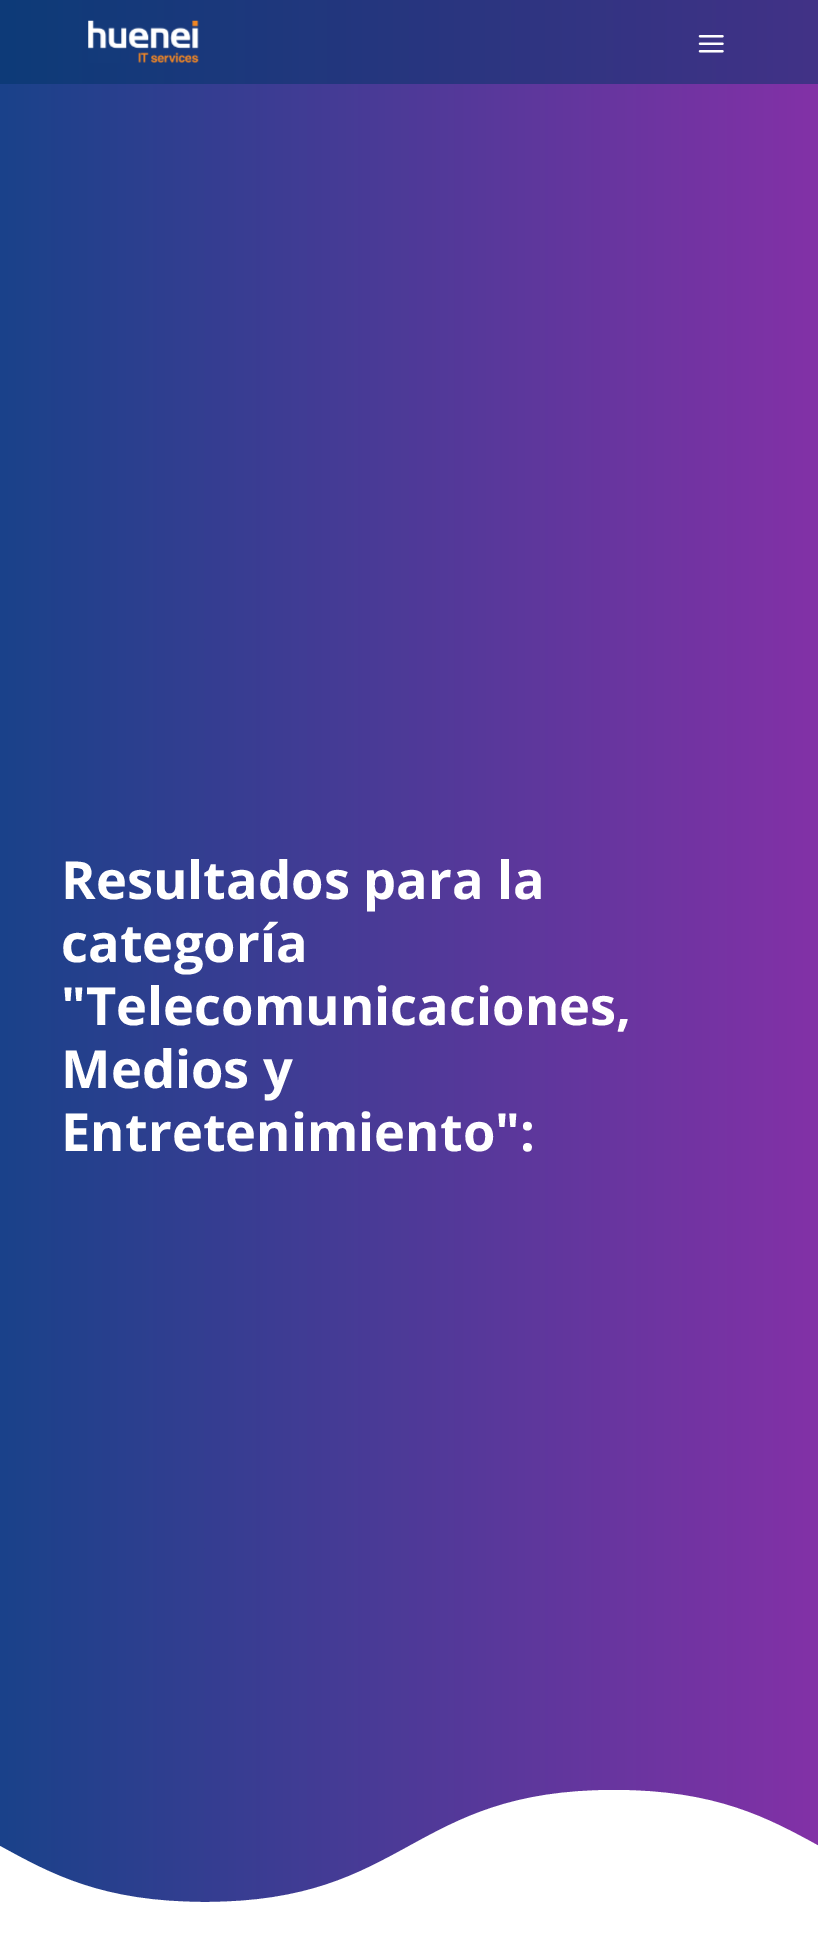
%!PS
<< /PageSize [818 1939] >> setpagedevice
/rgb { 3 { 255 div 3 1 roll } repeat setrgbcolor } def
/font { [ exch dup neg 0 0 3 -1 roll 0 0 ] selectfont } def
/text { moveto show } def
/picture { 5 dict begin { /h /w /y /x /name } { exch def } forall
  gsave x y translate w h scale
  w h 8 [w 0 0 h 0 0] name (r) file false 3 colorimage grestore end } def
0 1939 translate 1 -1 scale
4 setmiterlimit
255 255 255 rgb
0 0 818 1939 rectfill
gsave 0 0 moveto 818 0 rlineto 0 84 rlineto -818 0 rlineto closepath clip newpath
<< /ShadingType 2 /ColorSpace /DeviceRGB /Coords [0 970 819 970] /Extend [true true] /Function << /FunctionType 2 /Domain [0 1] /C0 [0.051 0.231 0.471] /C1 [0.259 0.196 0.529] /N 1 >> >> shfill grestore
(img_01.rgb) 88 20 111 43 picture
(img_02.rgb) 698 35 26 18 picture
gsave 0 84 moveto 818 0 rlineto 0 1818 rlineto -818 0 rlineto closepath clip newpath
<< /ShadingType 2 /ColorSpace /DeviceRGB /Coords [0 970 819 970] /Extend [true true] /Function << /FunctionType 2 /Domain [0 1] /C0 [0.102 0.259 0.541] /C1 [0.514 0.192 0.655] /N 1 >> >> shfill grestore
205 1902 moveto -103 0 -154 -28 -205 -56 rcurveto 0 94 rlineto 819 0 rlineto 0 -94 rlineto -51 -28 -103 -56 -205 -56 rcurveto -205 0 -205 112 -409 112 rcurveto closepath fill
/OpenSans-Bold 52.5 font
(Resultados para la) 61 899 text
(categoría) 61 962 text
("Telecomunicaciones,) 61 1025 text
(Medios y) 61 1088 text
(Entretenimiento":) 61 1151 text
showpage
